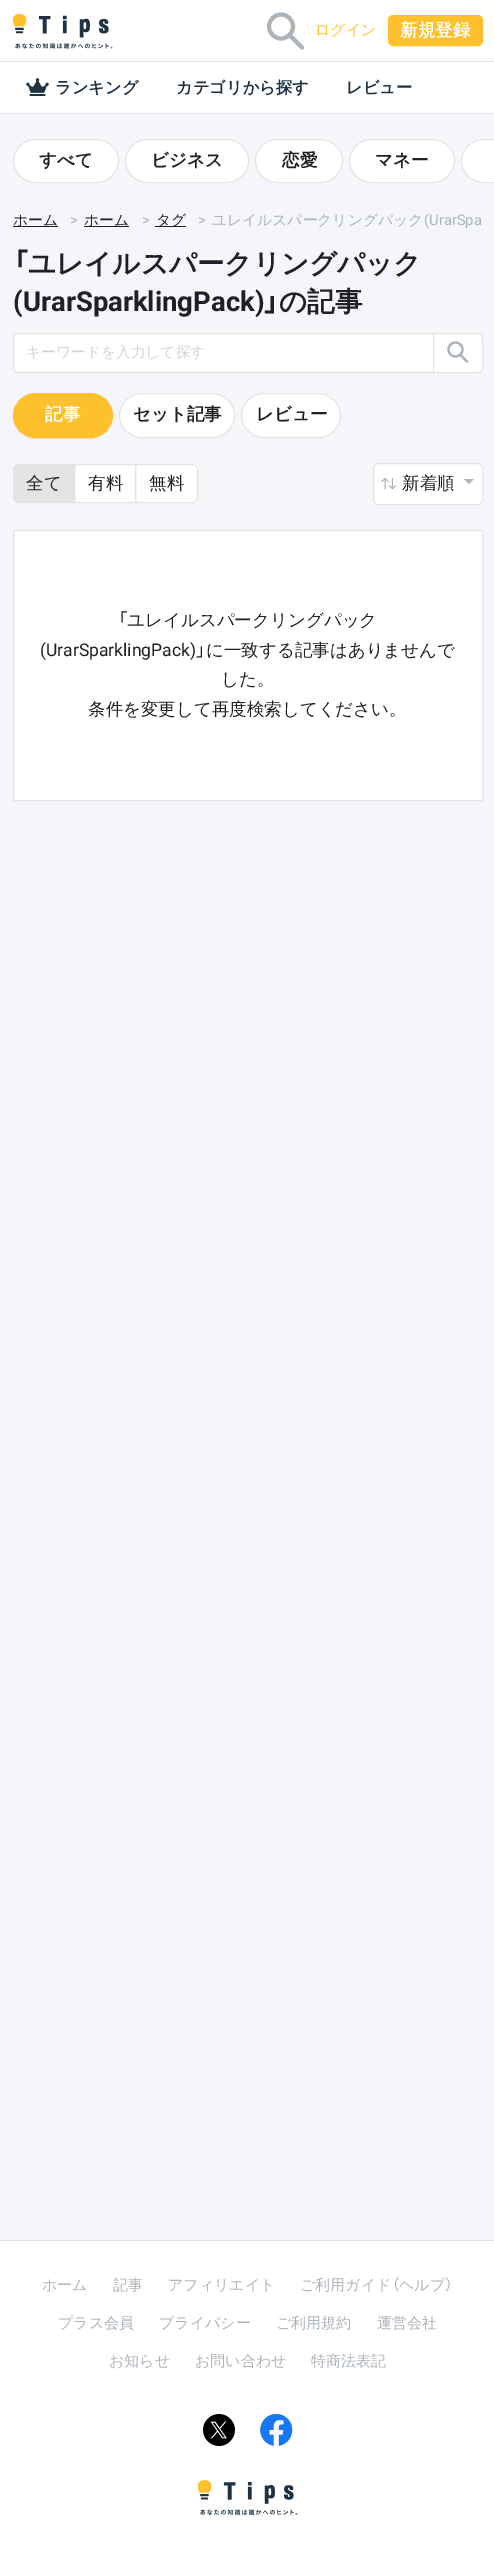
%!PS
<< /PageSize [494 2574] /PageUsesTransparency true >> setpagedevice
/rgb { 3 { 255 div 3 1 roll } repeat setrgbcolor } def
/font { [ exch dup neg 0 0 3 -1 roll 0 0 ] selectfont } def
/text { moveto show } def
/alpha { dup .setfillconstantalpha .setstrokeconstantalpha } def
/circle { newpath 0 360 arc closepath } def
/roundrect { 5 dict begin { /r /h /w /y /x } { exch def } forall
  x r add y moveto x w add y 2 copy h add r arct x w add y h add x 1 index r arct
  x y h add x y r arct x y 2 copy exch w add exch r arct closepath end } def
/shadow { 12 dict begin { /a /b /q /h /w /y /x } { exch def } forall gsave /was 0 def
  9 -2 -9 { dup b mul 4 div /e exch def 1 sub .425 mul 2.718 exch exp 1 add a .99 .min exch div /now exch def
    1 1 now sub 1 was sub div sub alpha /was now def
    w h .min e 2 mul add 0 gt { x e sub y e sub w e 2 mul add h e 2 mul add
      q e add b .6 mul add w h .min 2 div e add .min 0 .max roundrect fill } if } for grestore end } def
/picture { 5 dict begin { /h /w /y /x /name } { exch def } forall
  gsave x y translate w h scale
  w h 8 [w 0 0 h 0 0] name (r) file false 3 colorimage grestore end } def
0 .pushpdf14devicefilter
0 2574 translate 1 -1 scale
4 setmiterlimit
245 246 249 rgb
0 0 494 2574 rectfill
255 255 255 rgb
0 0 494 113 rectfill
228 228 228 rgb
0 113 494 1 rectfill
(img_01.rgb) 13 14 100 35 picture
172 179 185 rgb
4 setlinewidth
281 26.5 12 circle stroke
1 setlinecap
290 35.5 moveto 12 12 rlineto stroke
255 192 46 rgb
388.5 15.5 94 30 4.5 roundrect gsave fill grestore
1 setlinewidth
0 setlinecap
stroke
228 228 228 rgb
0 61 494 1 rectfill
(img_02.rgb) 26 78 23 18 picture
255 255 255 rgb
13.5 139.5 105 43 21.5 roundrect gsave fill grestore
228 228 228 rgb
stroke
255 255 255 rgb
125.5 139.5 123 43 21.5 roundrect gsave fill grestore
228 228 228 rgb
stroke
255 255 255 rgb
255.5 139.5 87 43 21.5 roundrect gsave fill grestore
228 228 228 rgb
stroke
255 255 255 rgb
349.5 139.5 105 43 21.5 roundrect gsave fill grestore
228 228 228 rgb
stroke
255 255 255 rgb
483 139 moveto 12 0 rlineto 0 44 rlineto -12 0 rlineto -12 0 -22 -10 -22 -22 rcurveto 0 -12 10 -22 22 -22 rcurveto closepath fill
228 228 228 rgb
461.5 139.5 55 43 21.5 roundrect stroke
30 32 36 rgb
13 226 45 1 rectfill
84 226 45 1 rectfill
155 226 31 1 rectfill
255 255 255 rgb
18 334 moveto 415 0 rlineto 0 37 rlineto -415 0 rlineto -2 0 -4 -2 -4 -4 rcurveto 0 -29 rlineto 0 -2 2 -4 4 -4 rcurveto closepath fill
228 228 228 rgb
18 333.5 moveto 415.5 0 rlineto 0 39 rlineto -415.5 0 rlineto -2.5 0 -4.5 -2 -4.5 -4.5 rcurveto 0 -30 rlineto 0 -2.5 2 -4.5 4.5 -4.5 rcurveto closepath stroke
255 255 255 rgb
433.5 333.5 moveto 44.5 0 rlineto 2.5 0 4.5 2 4.5 4.5 rcurveto 0 30 rlineto 0 2.5 -2 4.5 -4.5 4.5 rcurveto -44.5 0 rlineto closepath gsave fill grestore
228 228 228 rgb
stroke
172 179 185 rgb
2.2 setlinewidth
455.5 349.5 7 circle stroke
1 setlinecap
460.5 355 moveto 6.5 6.5 rlineto stroke
gsave
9 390 moveto 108 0 rlineto 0 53 rlineto -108 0 rlineto closepath 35.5 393 moveto 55 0 rlineto 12.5 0 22.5 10 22.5 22.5 rcurveto 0 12.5 -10 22.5 -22.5 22.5 rcurveto -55 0 rlineto -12.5 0 -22.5 -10 -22.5 -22.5 rcurveto 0 -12.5 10 -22.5 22.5 -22.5 rcurveto closepath eoclip newpath
0 0 0 rgb
13 394 100 45 22.5 1 0.05 shadow
grestore
255 192 46 rgb
13.5 393.5 99 44 22 roundrect gsave fill grestore
1 setlinewidth
0 setlinecap
stroke
255 255 255 rgb
119.5 393.5 115 44 22 roundrect gsave fill grestore
228 228 228 rgb
stroke
255 255 255 rgb
241.5 393.5 99 44 22 roundrect gsave fill grestore
228 228 228 rgb
stroke
255 255 255 rgb
13 464 185 39 rectfill
228 228 228 rgb
74.5 464.5 61 38 rectstroke
18 464.5 moveto 56.5 0 rlineto 0 38 rlineto -56.5 0 rlineto -2.5 0 -4.5 -2 -4.5 -4.5 rcurveto 0 -29 rlineto 0 -2.5 2 -4.5 4.5 -4.5 rcurveto closepath gsave fill grestore
stroke
135.5 464.5 moveto 57.5 0 rlineto 2.5 0 4.5 2 4.5 4.5 rcurveto 0 29 rlineto 0 2.5 -2 4.5 -4.5 4.5 rcurveto -57.5 0 rlineto closepath stroke
255 255 255 rgb
373.5 463.5 109 41 4.5 roundrect gsave fill grestore
228 228 228 rgb
stroke
(img_03.rgb) 381 478 15 12 picture
172 179 185 rgb
464 479 moveto 10 0 rlineto -5 5 rlineto closepath fill
255 255 255 rgb
13.5 530.5 moveto 469 0 rlineto 0 270 rlineto -469 0 rlineto closepath gsave fill grestore
228 228 228 rgb
stroke
255 255 255 rgb
0 2241 494 333 rectfill
228 228 228 rgb
0 2240 494 1 rectfill
(img_04.rgb) 203 2414 32 32 picture
(img_05.rgb) 260 2414 33 32 picture
(img_06.rgb) 198 2480 100 35 picture
/WenQuanYiZenHei-Medium 15 font
255 192 46 rgb
(ログイン) 315 35 text
/WenQuanYiZenHei-Bold 17.5 font
255 255 255 rgb
(新規登録) 400 36 text
/WenQuanYiZenHei-Bold 16.25 font
30 50 68 rgb
(ランキング) 55 93 text
(カテゴリから探す) 176 93 text
(レビュー) 346 93 text
/WenQuanYiZenHei-Bold 17.5 font
30 32 36 rgb
(すべて) 39 166 text
(ビジネス) 151 166 text
(恋愛) 282 166 text
(マネー) 375 166 text
/WenQuanYiZenHei-Medium 14.75 font
(ホーム) 13 225 text
/Roboto-Regular 14.75 font
172 179 185 rgb
(>) 70 225 text
/WenQuanYiZenHei-Medium 14.75 font
30 32 36 rgb
(ホーム) 84 225 text
/Roboto-Regular 14.75 font
172 179 185 rgb
(>) 142 225 text
/WenQuanYiZenHei-Medium 14.75 font
30 32 36 rgb
(タグ) 156 225 text
/Roboto-Regular 14.75 font
172 179 185 rgb
(>) 198 225 text
/WenQuanYiZenHei-Medium 14.75 font
(ユレイルスパークリングパック) 212 225 text
/Roboto-Regular 14.75 font
(\(UrarSpa) 424 225 text
/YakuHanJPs-Bold 27.5 font
30 32 36 rgb
(「) 13 273 text
/WenQuanYiZenHei-Bold 27.5 font
(ユレイルスパークリングパック) 28 273 text
/Roboto-Bold 27.5 font
(\(UrarSparklingPack\)) 13 311 text
/YakuHanJPs-Bold 27.5 font
(」) 264 311 text
/WenQuanYiZenHei-Bold 27.5 font
(の記事) 279 311 text
/WenQuanYiZenHei-Medium 14.75 font
206 212 218 rgb
(キーワードを入力して探す) 26 357 text
/WenQuanYiZenHei-Bold 17.5 font
255 255 255 rgb
(記事) 45 420 text
30 32 36 rgb
(セット記事) 133 420 text
(レビュー) 256 420 text
/WenQuanYiZenHei-Medium 17.5 font
(全て) 26 489 text
(有料) 88 489 text
(無料) 149 489 text
(新着順) 402 489 text
/YakuHanJPs-Regular 17.5 font
(「) 118 626 text
/WenQuanYiZenHei-Medium 17.5 font
(ユレイルスパークリングパック) 127 626 text
/Roboto-Regular 17.5 font
(\(UrarSparklingPack\)) 40 656 text
/YakuHanJPs-Regular 17.5 font
(」) 196 656 text
/WenQuanYiZenHei-Medium 17.5 font
(に一致する記事はありませんで) 206 656 text
(した。) 221 685 text
(条件を変更して再度検索してください。) 88 715 text
/WenQuanYiZenHei-Medium 15 font
172 179 185 rgb
(ホーム) 42 2290 text
(記事) 113 2290 text
(アフィリエイト) 168 2290 text
(ご利用ガイド) 300 2290 text
/YakuHanJPs-Regular 15 font
(（) 392 2290 text
/WenQuanYiZenHei-Medium 15 font
(ヘルプ) 399 2290 text
/YakuHanJPs-Regular 15 font
(）) 445 2290 text
/WenQuanYiZenHei-Medium 15 font
(プラス会員) 58 2328 text
(プライバシー) 159 2328 text
(ご利用規約) 276 2328 text
(運営会社) 377 2328 text
(お知らせ) 109 2366 text
(お問い合わせ) 195 2366 text
(特商法表記) 311 2366 text
.poppdf14devicefilter showpage
